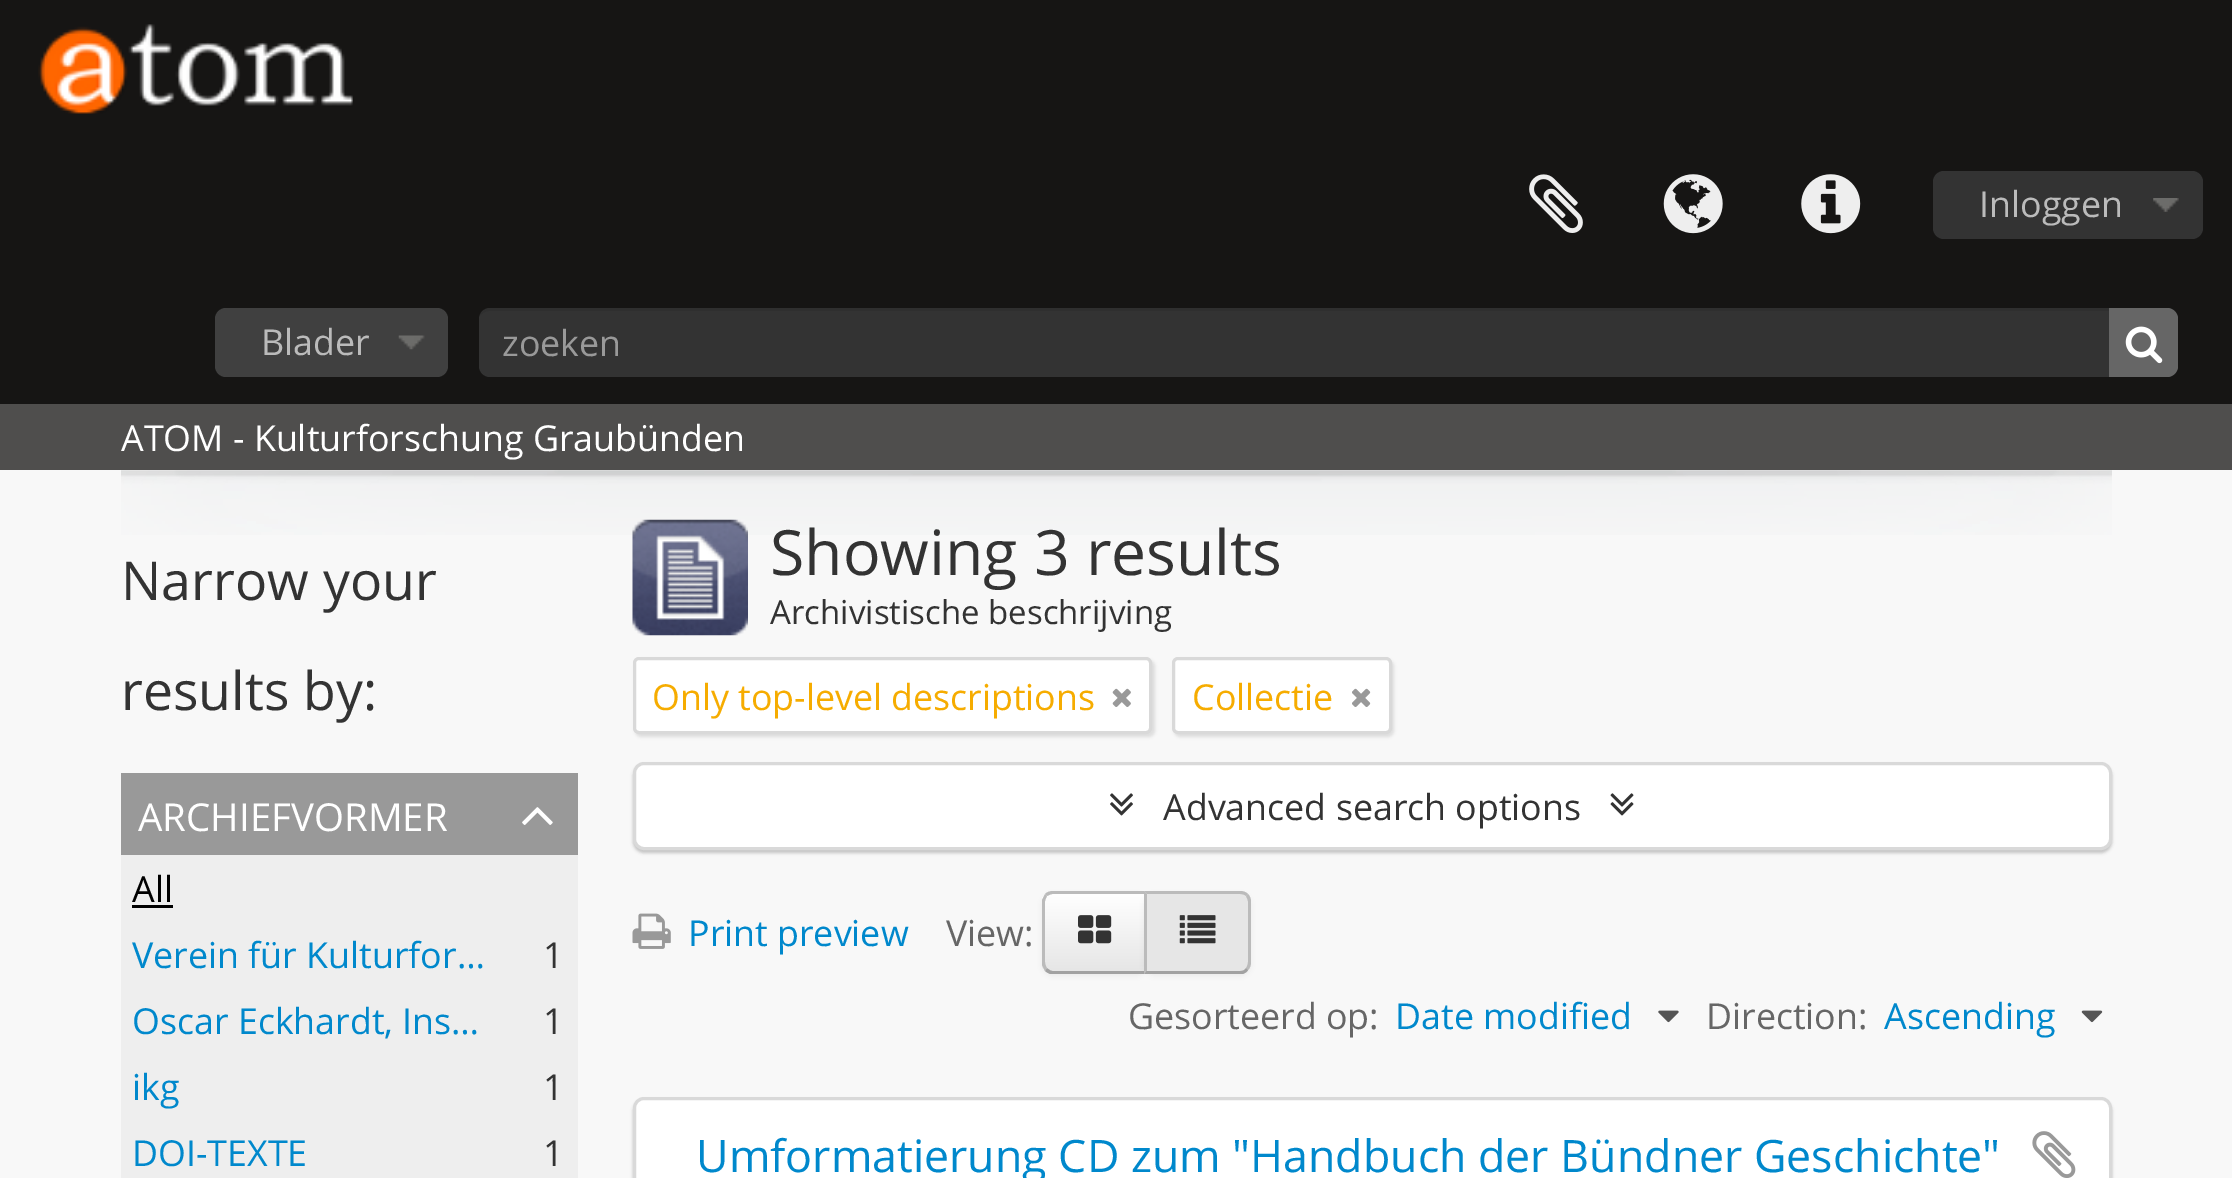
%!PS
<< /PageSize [2232 1178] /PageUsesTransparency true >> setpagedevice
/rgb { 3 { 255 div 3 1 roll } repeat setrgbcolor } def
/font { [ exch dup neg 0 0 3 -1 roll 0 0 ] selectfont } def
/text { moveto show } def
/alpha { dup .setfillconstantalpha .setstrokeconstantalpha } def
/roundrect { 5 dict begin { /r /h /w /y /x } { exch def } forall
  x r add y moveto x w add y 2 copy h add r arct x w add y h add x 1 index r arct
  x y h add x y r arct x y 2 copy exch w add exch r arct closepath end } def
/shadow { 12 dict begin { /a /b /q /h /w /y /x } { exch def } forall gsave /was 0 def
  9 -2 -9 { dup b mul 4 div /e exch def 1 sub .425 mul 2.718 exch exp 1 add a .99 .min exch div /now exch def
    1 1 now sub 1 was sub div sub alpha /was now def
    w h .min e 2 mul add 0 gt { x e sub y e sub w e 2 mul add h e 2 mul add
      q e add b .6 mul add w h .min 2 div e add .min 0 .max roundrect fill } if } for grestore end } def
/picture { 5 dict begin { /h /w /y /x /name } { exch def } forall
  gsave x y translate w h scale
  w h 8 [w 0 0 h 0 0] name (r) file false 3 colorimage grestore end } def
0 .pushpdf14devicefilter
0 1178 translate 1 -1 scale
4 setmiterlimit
248 248 248 rgb
0 0 2232 1178 rectfill
22 21 20 rgb
0 0 2232 404 rectfill
(img_01.rgb) 38 24 315 90 picture
(img_02.rgb) 1529 174 54 59 picture
(img_03.rgb) 1663 174 60 60 picture
(img_04.rgb) 1801 174 60 60 picture
51 51 51 rgb
1933 171 270 68 11 roundrect fill
(img_05.rgb) 2153 198 26 14 picture
64 64 64 rgb
215 308 233 69 11 roundrect fill
(img_06.rgb) 398 335 27 15 picture
51 51 51 rgb
479 308 1699 69 11 roundrect fill
0.07 alpha
0 0 0 rgb
490 311 moveto 1677 0 rlineto 6 0 11 5 11 11 rcurveto 0 -3 rlineto 0 -6 -5 -11 -11 -11 rcurveto -1677 0 rlineto -5 0 -10 4 -11 9 rcurveto 2 -3 6 -6 11 -6 rcurveto closepath fill
1 alpha
102 102 102 rgb
2109 308 moveto 58 0 rlineto 6 0 11 5 11 11 rcurveto 0 47 rlineto 0 6 -5 11 -11 11 rcurveto -58 0 rlineto closepath fill
(img_07.rgb) 2125 326 38 38 picture
79 78 77 rgb
0 404 2232 66 rectfill
(img_08.rgb) 121 470 1991 65 picture
153 153 153 rgb
121 773 457 82 rectfill
(img_09.rgb) 522 807 31 18 picture
238 238 238 rgb
121 855 457 323 rectfill
0 0 0 rgb
132 905 41 3 rectfill
(img_10.rgb) 632 519 116 117 picture
635 660 520 77 6 1.5 0.1 shadow
255 255 255 rgb
634.5 658.5 516 74 4.5 roundrect gsave fill grestore
217 217 217 rgb
3 setlinewidth
stroke
(img_11.rgb) 1112 688 19 19 picture
0 0 0 rgb
1174 660 220 77 6 1.5 0.1 shadow
255 255 255 rgb
1173.5 658.5 217 74 4.5 roundrect gsave fill grestore
217 217 217 rgb
stroke
(img_12.rgb) 1352 688 19 19 picture
0 0 0 rgb
633 765 1479 88 11 1.5 0.2 shadow
255 255 255 rgb
634.5 763.5 1476 85 9.5 roundrect gsave fill grestore
217 217 217 rgb
stroke
(img_13.rgb) 1110 793 23 23 picture
(img_14.rgb) 1610 793 24 23 picture
(img_15.rgb) 632 913 39 36 picture
0 0 0 rgb
1042 894 105 82 11 3 0.05 shadow
gsave
1053 891 moveto 94 0 rlineto 0 83 rlineto -94 0 rlineto -6 0 -11 -5 -11 -11 rcurveto 0 -61 rlineto 0 -6 5 -11 11 -11 rcurveto closepath clip newpath
gsave 1042 894 moveto 102 0 rlineto 0 77 rlineto -102 0 rlineto closepath clip newpath
<< /ShadingType 2 /ColorSpace /DeviceRGB /Coords [1095 894 1095 971] /Extend [true true] /Function << /FunctionType 2 /Domain [0 1] /C0 [1 1 1] /C1 [0.902 0.902 0.902] /N 1 >> >> shfill grestore
grestore
187 187 187 rgb
1053 891 moveto -3 0 -6 1 -8 3 rcurveto 2 2 rlineto 2 -1 4 -2 6 -2 rcurveto 91 0 rlineto 3 -3 rlineto closepath fill
162 162 162 rgb
1147 974 moveto -97 0 rlineto -2 -1 -4 -2 -5 -3 rcurveto 2 -3 rlineto 2 2 4 3 6 3 rcurveto 91 0 rlineto closepath fill
187 187 187 rgb
1042 900 moveto 1 -2 2 -4 3 -6 rcurveto 2 2 rlineto -1 2 -2 4 -2 6 rcurveto 0 60 rlineto 0 2 1 5 2 6 rcurveto -2 3 rlineto -1 -2 -2 -4 -3 -6 rcurveto closepath fill
(img_16.rgb) 1078 915 34 29 picture
0 0 0 rgb
1144 894 107 82 11 3 0.05 shadow
230 230 230 rgb
1144 891 moveto 96 0 rlineto 6 0 11 5 11 11 rcurveto 0 61 rlineto 0 6 -5 11 -11 11 rcurveto -96 0 rlineto closepath fill
187 187 187 rgb
1144 891 moveto 3 3 rlineto 93 0 rlineto 3 0 5 1 6 2 rcurveto 2 -2 rlineto -2 -2 -5 -3 -8 -3 rcurveto closepath fill
1248 894 moveto 2 2 3 5 3 8 rcurveto 0 60 rlineto 0 3 -1 6 -3 8 rcurveto -2 -2 rlineto 1 -1 2 -4 2 -6 rcurveto 0 -60 rlineto 0 -2 -1 -4 -2 -6 rcurveto closepath fill
162 162 162 rgb
1243 974 moveto -99 0 rlineto 3 -4 rlineto 0 1 rlineto 93 0 rlineto 3 0 5 -1 6 -3 rcurveto 2 2 rlineto -1 2 -3 3 -5 4 rcurveto closepath fill
187 187 187 rgb
1144 891 moveto 0 83 rlineto 3 -4 rlineto 0 -76 rlineto closepath fill
(img_17.rgb) 1179 915 37 29 picture
(img_18.rgb) 1658 1010 21 13 picture
(img_19.rgb) 2081 1010 22 13 picture
0 0 0 rgb
633 1100 1479 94 11 1.5 0.2 shadow
255 255 255 rgb
634.5 1098.5 1476 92 9.5 roundrect gsave fill grestore
217 217 217 rgb
stroke
(img_20.rgb) 2032 1131 44 47 picture
/OpenSans-Regular 35.75 font
187 187 187 rgb
(Inloggen) 1979 217 text
(Blader) 261 355 text
153 153 153 rgb
(zoeken) 502 356 text
255 255 255 rgb
(ATOM - Kulturforschung Graubünden) 121 451 text
/OpenSans-Regular 53.5 font
51 51 51 rgb
(Narrow your) 121 600 text
(results by:) 121 710 text
/OpenSans-Regular 38.5 font
255 255 255 rgb
(ARCHIEFVORMER) 138 831 text
/OpenSans-Regular 35.75 font
0 0 0 rgb
(All) 132 902 text
0 136 204 rgb
(Verein für Kulturfor…) 132 968 text
51 51 51 rgb
(1) 543 968 text
0 136 204 rgb
(Oscar Eckhardt, Ins…) 132 1034 text
51 51 51 rgb
(1) 543 1034 text
0 136 204 rgb
(ikg) 132 1100 text
51 51 51 rgb
(1) 543 1100 text
0 136 204 rgb
(DOI-TEXTE) 132 1166 text
51 51 51 rgb
(1) 543 1166 text
/OpenSans-Regular 62.5 font
(Showing 3 results) 770 575 text
/OpenSans-Regular 33 font
(Archivistische beschrijving) 770 624 text
/OpenSans-Regular 35.75 font
246 172 0 rgb
(Only top-level descriptions) 652 710 text
(Collectie) 1192 710 text
51 51 51 rgb
(Advanced search options) 1163 820 text
0 136 204 rgb
(Print preview) 688 946 text
102 102 102 rgb
(View:) 946 946 text
(Gesorteerd op:) 1128 1029 text
0 136 204 rgb
(Date modified) 1395 1029 text
102 102 102 rgb
(Direction:) 1706 1029 text
0 136 204 rgb
(Ascending) 1884 1029 text
/OpenSans-Regular 44.7 font
(Umformatierung CD zum "Handbuch der Bündner Geschichte") 696 1172 text
.poppdf14devicefilter showpage
